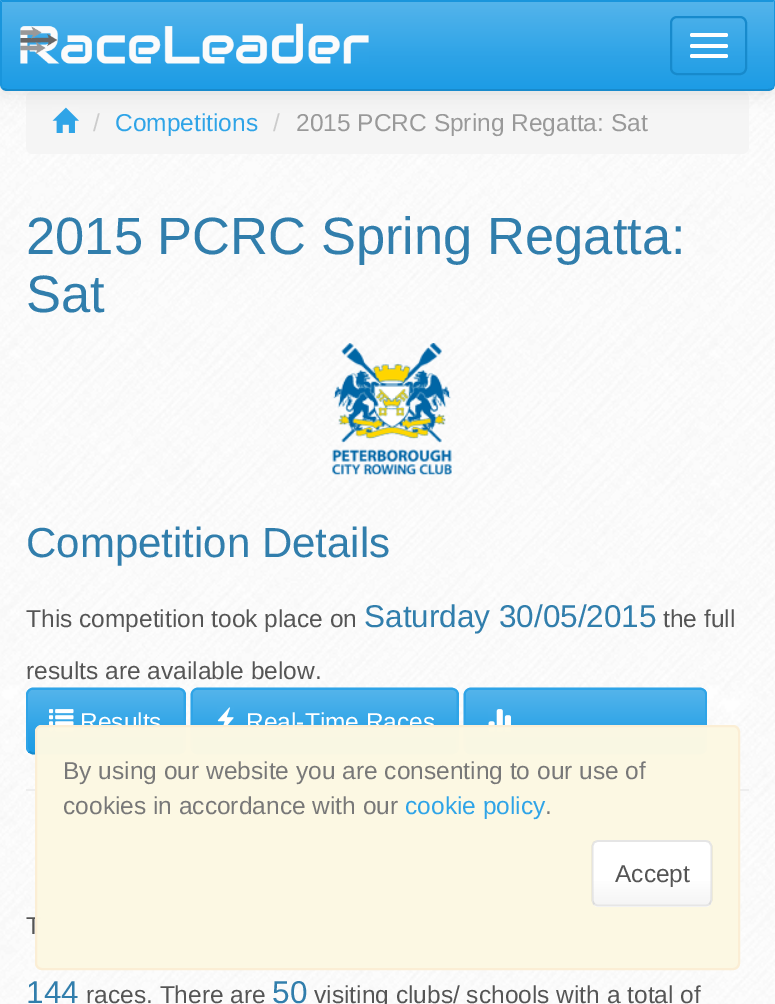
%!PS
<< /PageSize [775 1004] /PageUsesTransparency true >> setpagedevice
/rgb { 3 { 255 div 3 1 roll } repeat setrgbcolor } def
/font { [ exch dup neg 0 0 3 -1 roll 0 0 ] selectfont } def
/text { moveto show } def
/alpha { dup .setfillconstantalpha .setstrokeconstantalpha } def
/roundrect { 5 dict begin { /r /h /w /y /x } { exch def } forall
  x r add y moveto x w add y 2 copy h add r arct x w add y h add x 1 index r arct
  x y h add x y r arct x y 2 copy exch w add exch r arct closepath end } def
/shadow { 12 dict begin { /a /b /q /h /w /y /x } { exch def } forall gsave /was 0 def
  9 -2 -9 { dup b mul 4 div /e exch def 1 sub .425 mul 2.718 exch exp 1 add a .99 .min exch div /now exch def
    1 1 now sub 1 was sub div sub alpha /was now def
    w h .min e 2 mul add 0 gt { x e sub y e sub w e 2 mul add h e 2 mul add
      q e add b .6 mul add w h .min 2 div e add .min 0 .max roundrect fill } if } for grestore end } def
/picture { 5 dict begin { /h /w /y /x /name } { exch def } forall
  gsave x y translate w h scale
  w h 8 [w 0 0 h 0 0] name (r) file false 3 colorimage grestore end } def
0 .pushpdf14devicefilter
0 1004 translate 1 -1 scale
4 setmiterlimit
255 255 255 rgb
0 0 775 1004 rectfill
(img_01.rgb) 0 0 775 1004 picture
245 245 245 rgb
26 91 723 63 7 roundrect fill
0 0 0 rgb
0 2 775 91 7 9 0.1 shadow
gsave 2 2 moveto 772 0 rlineto 0 87 rlineto -772 0 rlineto closepath clip newpath
<< /ShadingType 2 /ColorSpace /DeviceRGB /Coords [388 1.7 388 89] /Extend [true true] /Function << /FunctionType 3 /Domain [0 1] /Functions [<< /FunctionType 2 /Domain [0 1] /C0 [0.329 0.706 0.922] /C1 [0.184 0.643 0.906] /N 1 >> << /FunctionType 2 /Domain [0 1] /C0 [0.184 0.643 0.906] /C1 [0.114 0.612 0.898] /N 1 >>] /Bounds [0.6] /Encode [0 1 0 1] >> >> shfill grestore
25 149 220 rgb
0 0 moveto 2 2 rlineto 771 0 rlineto 2 -2 rlineto closepath fill
775 0 moveto 0 84 rlineto 0 2 -1 4 -2 5 rcurveto -1 -1 rlineto 1 -1 2 -2 2 -4 rcurveto 0 -82 rlineto -1 0 rlineto closepath fill
23 138 204 rgb
7 91 moveto 761 0 rlineto 2 0 4 -1 5 -2 rcurveto -1 -1 rlineto -1 1 -3 1 -4 1 rcurveto -761 0 rlineto -1 0 -3 -1 -4 -1 rcurveto -1 1 rlineto 1 1 3 2 5 2 rcurveto closepath fill
25 149 220 rgb
2 2 moveto -2 -2 rlineto 0 84 rlineto 0 2 1 4 2 5 rcurveto 1 -1 rlineto -1 -1 -1 -2 -1 -4 rcurveto closepath fill
(img_02.rgb) 20 23 349 41 picture
23 138 204 rgb
2 setlinewidth
671 17 75 57 6 roundrect stroke
255 255 255 rgb
690 33 38 4 2 roundrect fill
690 44 38 4 2 roundrect fill
690 54 38 4 2 roundrect fill
(img_03.rgb) 52 107 27 26 picture
(img_04.rgb) 332 343 120 132 picture
47 164 231 rgb
26 688 160 66 7 roundrect fill
gsave 28 690 moveto 156 0 rlineto 0 63 rlineto -156 0 rlineto closepath clip newpath
<< /ShadingType 2 /ColorSpace /DeviceRGB /Coords [106 690 106 753] /Extend [true true] /Function << /FunctionType 3 /Domain [0 1] /Functions [<< /FunctionType 2 /Domain [0 1] /C0 [0.329 0.706 0.922] /C1 [0.184 0.643 0.906] /N 1 >> << /FunctionType 2 /Domain [0 1] /C0 [0.184 0.643 0.906] /C1 [0.114 0.612 0.898] /N 1 >>] /Bounds [0.6] /Encode [0 1 0 1] >> >> shfill grestore
23 138 204 rgb
1.8 setlinewidth
183 751.5 moveto -1 1 -2.5 1.5 -4 2 rcurveto -146.5 0 rlineto -3.5 -2 rlineto stroke
47 164 231 rgb
29 751.5 moveto -1 -1 -2 -2.5 -2 -4.5 rcurveto 0 -52 rlineto 0 -2 1 -3.5 2 -4.5 rcurveto 1 -1 2.5 -2 4 -2 rcurveto 145.5 0 rlineto 1.5 0 3 1 4.5 2 rcurveto 1 1 1.5 2.5 1.5 4.5 rcurveto 0 52 rlineto 0 2 -0.5 3.5 -1.5 4.5 rcurveto stroke
(img_05.rgb) 49 709 25 23 picture
191 688 268 66 7 roundrect fill
gsave 193 690 moveto 264 0 rlineto 0 63 rlineto -264 0 rlineto closepath clip newpath
<< /ShadingType 2 /ColorSpace /DeviceRGB /Coords [325 690 325 753] /Extend [true true] /Function << /FunctionType 3 /Domain [0 1] /Functions [<< /FunctionType 2 /Domain [0 1] /C0 [0.329 0.706 0.922] /C1 [0.184 0.643 0.906] /N 1 >> << /FunctionType 2 /Domain [0 1] /C0 [0.184 0.643 0.906] /C1 [0.114 0.612 0.898] /N 1 >>] /Bounds [0.6] /Encode [0 1 0 1] >> >> shfill grestore
23 138 204 rgb
456 751.5 moveto -1.5 1 -3 2 -4.5 2 rcurveto -253.5 0 rlineto -2 0 -3.5 -1 -4.5 -2 rcurveto stroke
47 164 231 rgb
193.5 751.5 moveto -1 -1 -2 -2.5 -2 -4.5 rcurveto 0 -52 rlineto 0 -2 1 -3.5 2 -4.5 rcurveto 1 -1 2.5 -2 4.5 -2 rcurveto 253.5 0 rlineto 1.5 0 3 1 4.5 2 rcurveto 1 1 1.5 2.5 1.5 4.5 rcurveto 0 52 rlineto 0 2 -0.5 3.5 -1.5 4.5 rcurveto stroke
(img_06.rgb) 217 707 17 25 picture
464 688 243 66 7 roundrect fill
gsave 466 690 moveto 239 0 rlineto 0 63 rlineto -239 0 rlineto closepath clip newpath
<< /ShadingType 2 /ColorSpace /DeviceRGB /Coords [585 690 585 753] /Extend [true true] /Function << /FunctionType 3 /Domain [0 1] /Functions [<< /FunctionType 2 /Domain [0 1] /C0 [0.329 0.706 0.922] /C1 [0.184 0.643 0.906] /N 1 >> << /FunctionType 2 /Domain [0 1] /C0 [0.184 0.643 0.906] /C1 [0.114 0.612 0.898] /N 1 >>] /Bounds [0.6] /Encode [0 1 0 1] >> >> shfill grestore
23 138 204 rgb
704.5 751.5 moveto -1.5 1 -3 2 -4.5 2 rcurveto -229 0 rlineto -2 0 -3.5 -1 -4.5 -2 rcurveto stroke
47 164 231 rgb
466.5 751.5 moveto -1 -1 -2 -2.5 -2 -4.5 rcurveto 0 -52 rlineto 0 -2 1 -3.5 2 -4.5 rcurveto 1 -1 2.5 -2 4.5 -2 rcurveto 229 0 rlineto 1.5 0 3 1 4.5 2 rcurveto 1 1 1.5 2.5 1.5 4.5 rcurveto 0 52 rlineto 0 2 -0.5 3.5 -1.5 4.5 rcurveto stroke
(img_07.rgb) 488 709 23 23 picture
238 238 238 rgb
26 789 723 2 rectfill
/LiberationSans-Regular 24.5 font
204 204 204 rgb
(/) 93 131 text
47 164 231 rgb
(Competitions) 115 131 text
204 204 204 rgb
(/) 273 131 text
153 153 153 rgb
(2015 PCRC Spring Regatta: Sat) 296 131 text
/LiberationSans-Regular 52.5 font
49 126 172 rgb
(2015 PCRC Spring Regatta:) 26 254 text
(Sat) 26 312 text
/LiberationSans-Regular 42 font
(Competition Details) 26 557 text
/LiberationSans-Regular 24.5 font
85 85 85 rgb
(This competition took place on) 26 627 text
/LiberationSans-Regular 31.5 font
49 126 172 rgb
(Saturday 30/05/2015) 364 627 text
/LiberationSans-Regular 24.5 font
85 85 85 rgb
(the full) 663 627 text
(results are available below.) 26 679 text
255 255 255 rgb
(Results) 80 730 text
(Real-Time Races) 246 730 text
85 85 85 rgb
(T) 26 934 text
/LiberationSans-Regular 31.5 font
49 126 172 rgb
(144) 26 1003 text
/LiberationSans-Regular 24.5 font
85 85 85 rgb
(races. There are) 86 1003 text
/LiberationSans-Regular 31.5 font
49 126 172 rgb
(50) 272 1003 text
/LiberationSans-Regular 24.5 font
85 85 85 rgb
(visiting clubs/ schools with a total of) 314 1003 text
0.99 alpha
252 248 227 rgb
35 725 705 245 7 roundrect fill
251 238 213 rgb
2 setlinewidth
36 726 703 243 6 roundrect stroke
1 alpha
120 120 120 rgb
(By using our website you are consenting to our use of) 63 779 text
(cookies in accordance with our) 63 814 text
47 164 231 rgb
(cookie policy) 405 814 text
120 120 120 rgb
(.) 545 814 text
255 255 255 rgb
592 840 120 67 7 roundrect fill
gsave
592 840 120 67 7 roundrect clip newpath
gsave 593 842 moveto 118 0 rlineto 0 63 rlineto -118 0 rlineto closepath clip newpath
<< /ShadingType 2 /ColorSpace /DeviceRGB /Coords [652 842 652 905] /Extend [true true] /Function << /FunctionType 3 /Domain [0 1] /Functions [<< /FunctionType 2 /Domain [0 1] /C0 [1 1 1] /C1 [1 1 1] /N 1 >> << /FunctionType 2 /Domain [0 1] /C0 [1 1 1] /C1 [0.961 0.961 0.961] /N 1 >>] /Bounds [0.6] /Encode [0 1 0 1] >> >> shfill grestore
grestore
0.99 alpha
230 230 230 rgb
1.8 setlinewidth
709.5 904 moveto -1 1 -2.5 1.5 -4.5 1.5 rcurveto -106.5 0 rlineto -1.5 0 -3 -0.5 -4.5 -1.5 rcurveto stroke
0.1 alpha
0 0 0 rgb
594 904 moveto -1 -1.5 -1.5 -3 -1.5 -4.5 rcurveto 0 -52.5 rlineto 0 -1.5 0.5 -3 1.5 -4.5 rcurveto 1.5 -1 3 -1.5 4.5 -1.5 rcurveto 106.5 0 rlineto 2 0 3.5 0.5 4.5 1.5 rcurveto 1 1.5 2 3 2 4.5 rcurveto 0 52.5 rlineto 0 1.5 -1 3 -2 4.5 rcurveto stroke
1 alpha
85 85 85 rgb
(Accept) 615 882 text
.poppdf14devicefilter showpage
